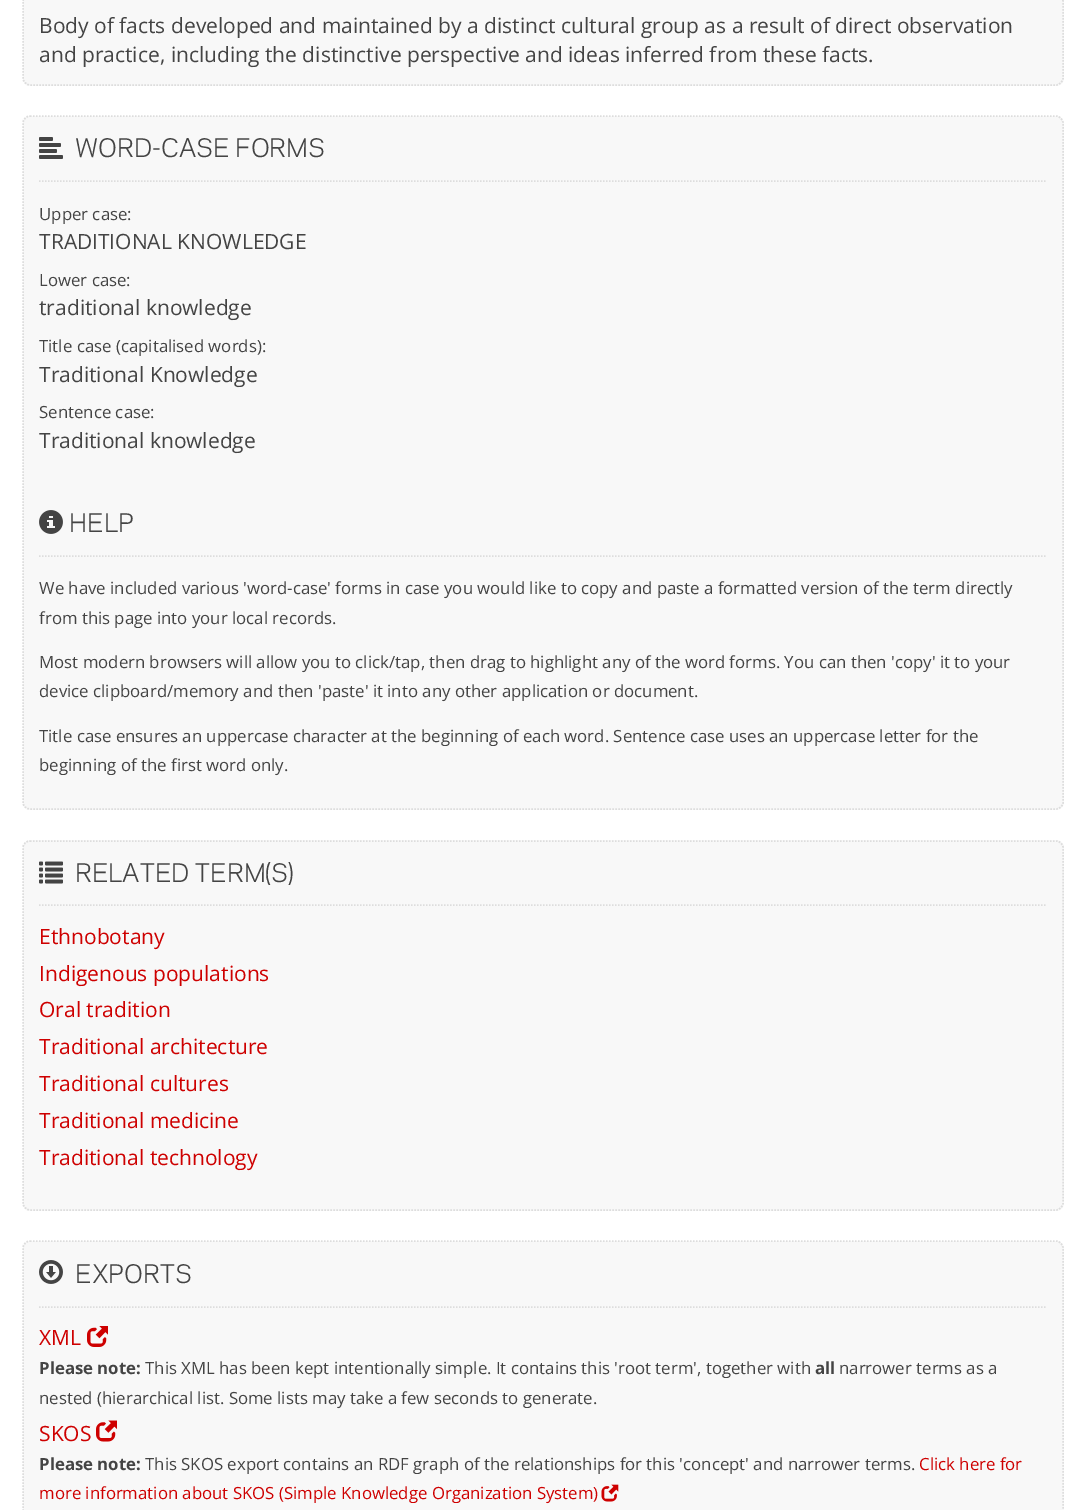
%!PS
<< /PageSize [1085 1510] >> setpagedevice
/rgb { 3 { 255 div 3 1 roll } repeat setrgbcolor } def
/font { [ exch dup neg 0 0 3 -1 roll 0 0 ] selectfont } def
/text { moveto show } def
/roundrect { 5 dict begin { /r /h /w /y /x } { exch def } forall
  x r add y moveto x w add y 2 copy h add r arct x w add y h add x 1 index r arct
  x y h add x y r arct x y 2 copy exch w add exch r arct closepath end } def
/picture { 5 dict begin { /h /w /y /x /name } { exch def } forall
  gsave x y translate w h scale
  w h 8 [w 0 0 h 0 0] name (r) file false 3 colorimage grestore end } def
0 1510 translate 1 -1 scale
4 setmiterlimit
255 255 255 rgb
0 0 1085 1510 rectfill
248 248 248 rgb
23 -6 1041 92 8 roundrect fill
221 221 221 rgb
1.5 setlinewidth
[1.5 1.5] 0 setdash
30 -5 moveto 1026 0 rlineto 3.5 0 7 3 7 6.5 rcurveto 0 76.5 rlineto 0 3.5 -3.5 7 -7 7 rcurveto -1026 0 rlineto -3.5 0 -7 -3.5 -7 -7 rcurveto 0 -76.5 rlineto 0 -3.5 3.5 -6.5 7 -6.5 rcurveto closepath stroke
248 248 248 rgb
23 116 1041 694 8 roundrect fill
221 221 221 rgb
30 116 moveto 1026 0 rlineto 3.5 0 7 3.5 7 7 rcurveto 0 679.5 rlineto 0 3.5 -3.5 6.5 -7 6.5 rcurveto -1026 0 rlineto -3.5 0 -7 -3 -7 -6.5 rcurveto 0 -679.5 rlineto 0 -3.5 3.5 -7 7 -7 rcurveto closepath stroke
39 181 moveto 1008 0 rlineto stroke
(img_01.rgb) 39 137 24 22 picture
39 556 moveto 1008 0 rlineto stroke
(img_02.rgb) 39 510 24 24 picture
248 248 248 rgb
23 840 1041 371 8 roundrect fill
221 221 221 rgb
30 841 moveto 1026 0 rlineto 3.5 0 7 3 7 6.5 rcurveto 0 355.5 rlineto 0 3.5 -3.5 7 -7 7 rcurveto -1026 0 rlineto -3.5 0 -7 -3.5 -7 -7 rcurveto 0 -355.5 rlineto 0 -3.5 3.5 -6.5 7 -6.5 rcurveto closepath stroke
39 905 moveto 1008 0 rlineto stroke
(img_03.rgb) 39 861 24 23 picture
248 248 248 rgb
23 1241 1041 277 8 roundrect fill
221 221 221 rgb
30 1241 moveto 1026 0 rlineto 3.5 0 7 3.5 7 7 rcurveto 0 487.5 rlineto 0 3.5 -3.5 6.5 -7 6.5 rcurveto -1026 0 rlineto -3.5 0 -7 -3 -7 -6.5 rcurveto 0 -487.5 rlineto 0 -3.5 3.5 -7 7 -7 rcurveto closepath stroke
39 1307 moveto 1008 0 rlineto stroke
(img_04.rgb) 39 1260 24 24 picture
(img_05.rgb) 87 1326 21 21 picture
(img_06.rgb) 96 1420 21 22 picture
(img_07.rgb) 601 1484 18 18 picture
/OpenSans-Regular 21 font
68 68 68 rgb
(Body of facts developed and maintained by a distinct cultural group as a result of direct observation) 39 33 text
(and practice, including the distinctive perspective and ideas inferred from these facts.) 39 62 text
/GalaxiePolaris-Regular 24 font
(WORD-CASE FORMS) 75 157 text
/OpenSans-Regular 16.8 font
(Upper case:) 39 220 text
/OpenSans-Regular 21 font
(TRADITIONAL KNOWLEDGE) 39 249 text
/OpenSans-Regular 16.8 font
(Lower case:) 39 286 text
/OpenSans-Regular 21 font
(traditional knowledge) 39 315 text
/OpenSans-Regular 16.8 font
(Title case \(capitalised words\):) 39 352 text
/OpenSans-Regular 21 font
(Traditional Knowledge) 39 382 text
/OpenSans-Regular 16.8 font
(Sentence case:) 39 418 text
/OpenSans-Regular 21 font
(Traditional knowledge) 39 448 text
/GalaxiePolaris-Regular 24 font
(HELP) 69 532 text
/OpenSans-Regular 16.8 font
(We have included various 'word-case' forms in case you would like to copy and paste a formatted version of the term directly) 39 594 text
(from this page into your local records.) 39 624 text
(Most modern browsers will allow you to click/tap, then drag to highlight any of the word forms. You can then 'copy' it to your) 39 668 text
(device clipboard/memory and then 'paste' it into any other application or document.) 39 697 text
(Title case ensures an uppercase character at the beginning of each word. Sentence case uses an uppercase letter for the) 39 742 text
(beginning of the first word only.) 39 771 text
/GalaxiePolaris-Regular 24 font
(RELATED TERM\(S\)) 75 882 text
/OpenSans-Regular 21 font
206 0 0 rgb
(Ethnobotany) 39 944 text
(Indigenous populations) 39 981 text
(Oral tradition) 39 1017 text
(Traditional architecture) 39 1054 text
(Traditional cultures) 39 1091 text
(Traditional medicine) 39 1128 text
(Traditional technology) 39 1165 text
/GalaxiePolaris-Regular 24 font
68 68 68 rgb
(EXPORTS) 75 1283 text
/OpenSans-Regular 21 font
206 0 0 rgb
(XML) 39 1345 text
/OpenSans-Bold 16.8 font
68 68 68 rgb
(Please note:) 39 1374 text
/OpenSans-Regular 16.8 font
(This XML has been kept intentionally simple. It contains this 'root term', together with) 145 1374 text
/OpenSans-Bold 16.8 font
(all) 815 1374 text
/OpenSans-Regular 16.8 font
(narrower terms as a) 839 1374 text
(nested \(hierarchical list. Some lists may take a few seconds to generate.) 39 1404 text
/OpenSans-Regular 21 font
206 0 0 rgb
(SKOS) 39 1441 text
/OpenSans-Bold 16.8 font
68 68 68 rgb
(Please note:) 39 1470 text
/OpenSans-Regular 16.8 font
206 0 0 rgb
(Click here for) 919 1470 text
(more information about SKOS \(Simple Knowledge Organization System\)) 39 1499 text
68 68 68 rgb
(This SKOS export contains an RDF graph of the relationships for this 'concept' and narrower terms.) 145 1470 text
showpage
